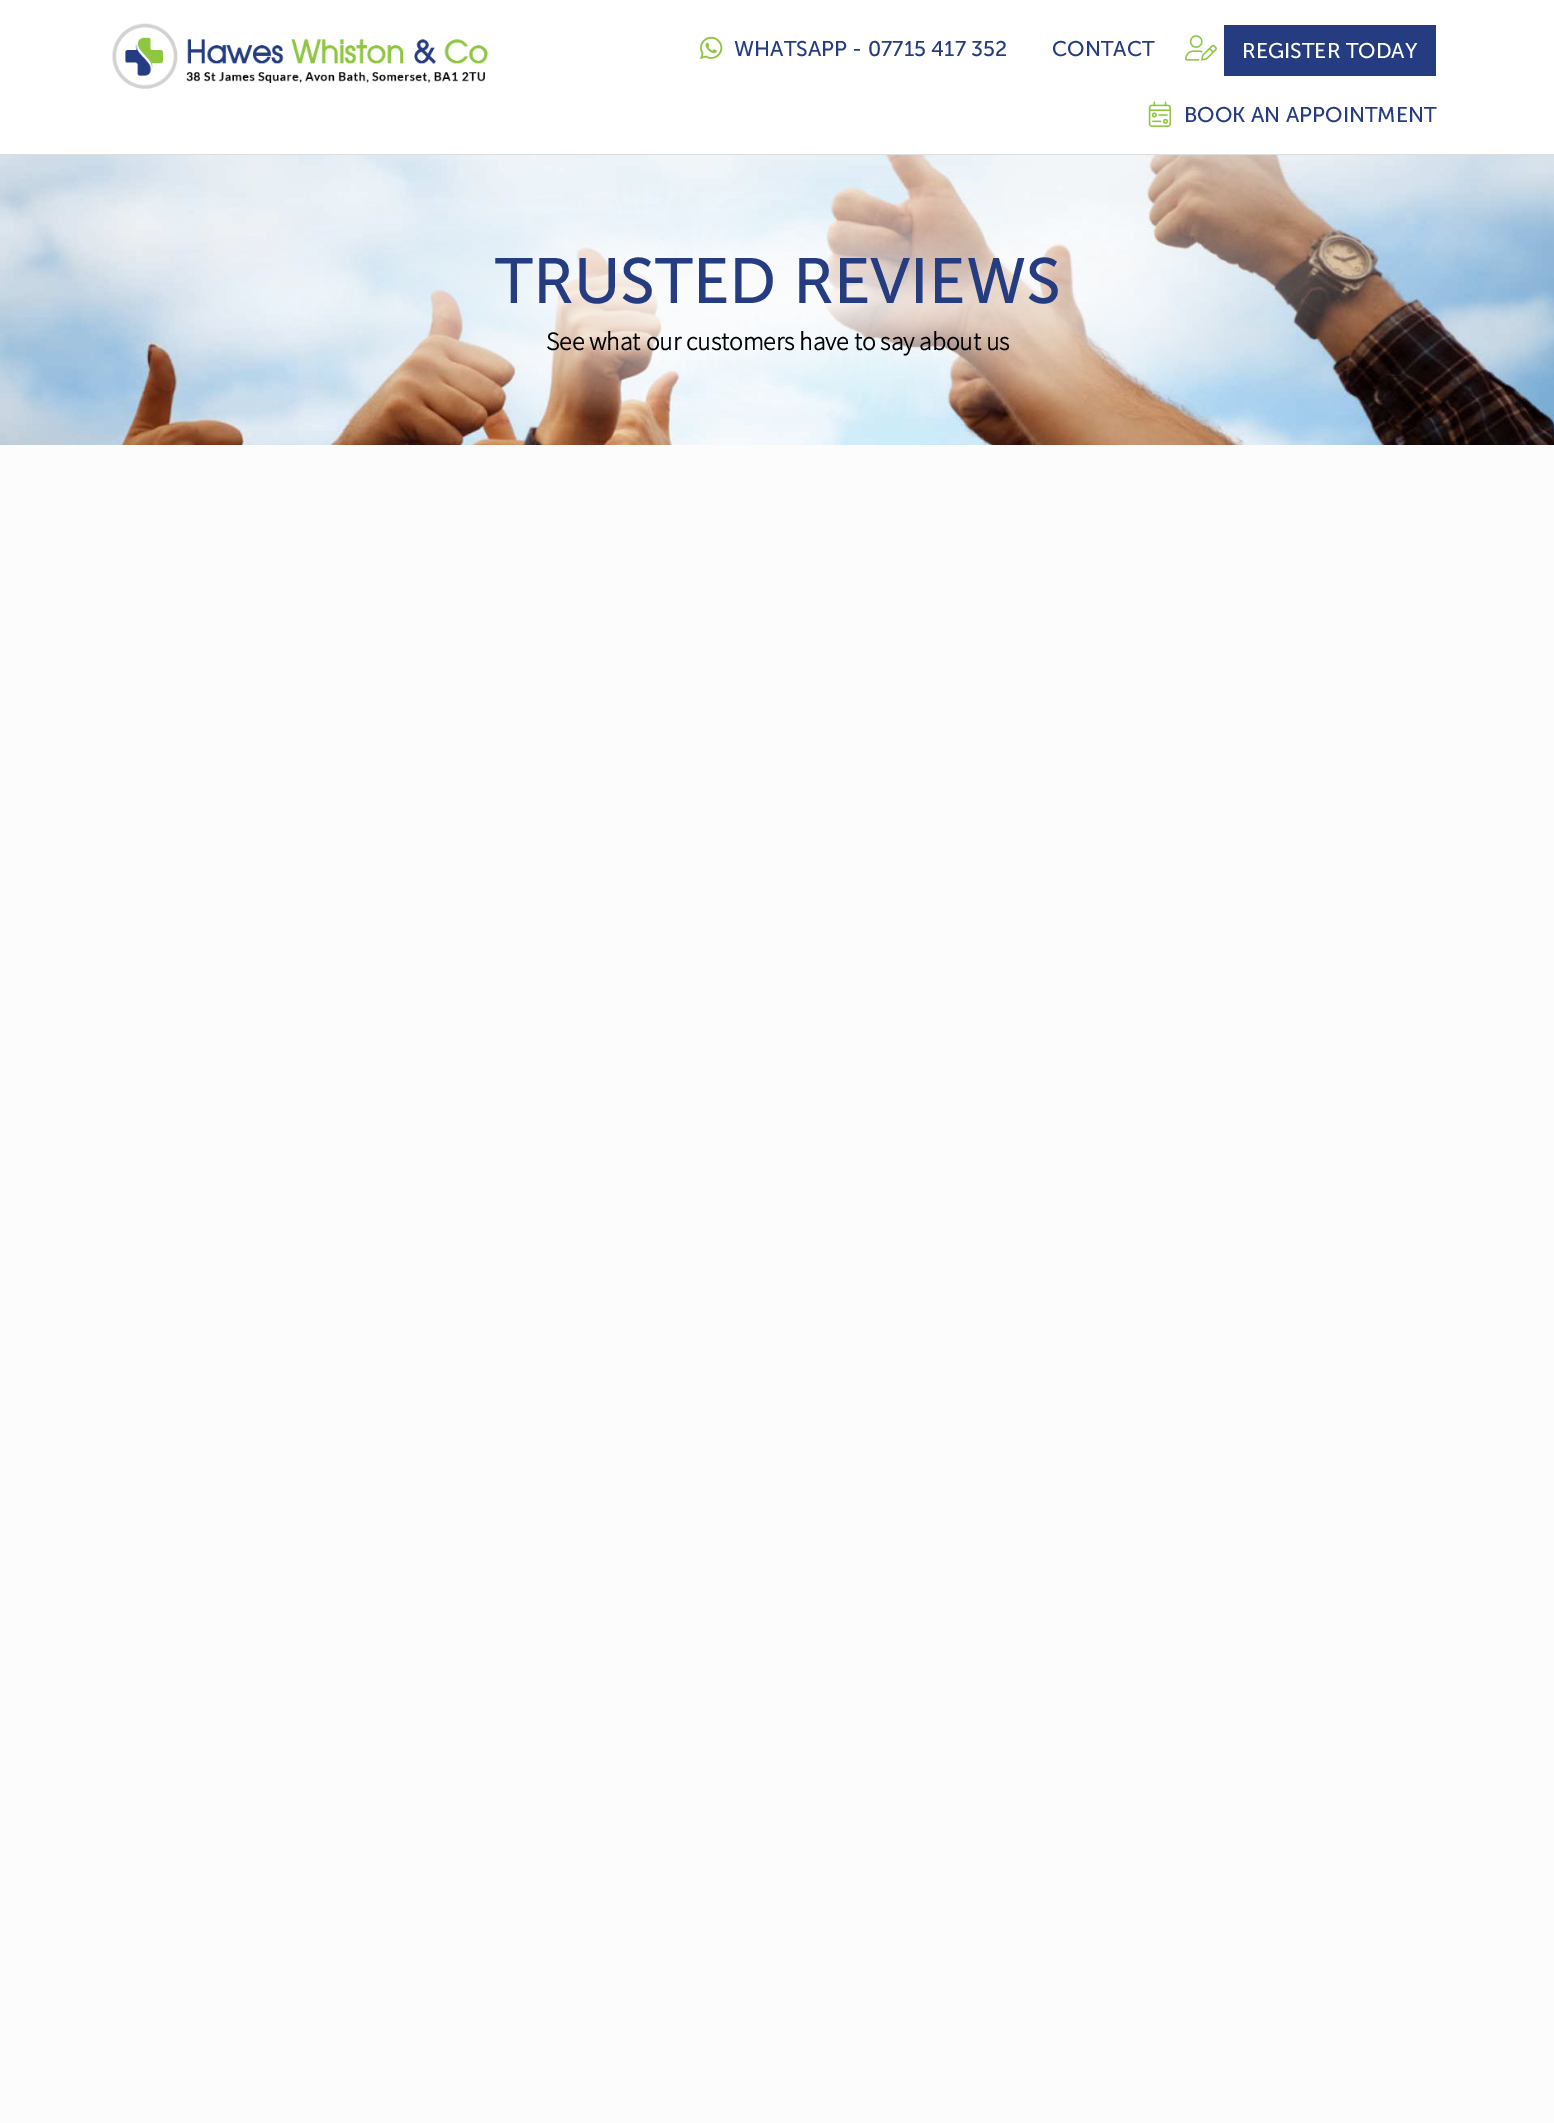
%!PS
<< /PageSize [1554 2123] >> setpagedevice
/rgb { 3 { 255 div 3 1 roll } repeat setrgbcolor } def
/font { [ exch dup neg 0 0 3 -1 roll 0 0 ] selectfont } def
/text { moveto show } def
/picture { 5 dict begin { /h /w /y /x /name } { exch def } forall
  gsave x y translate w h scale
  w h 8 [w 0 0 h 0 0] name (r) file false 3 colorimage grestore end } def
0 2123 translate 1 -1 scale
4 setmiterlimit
252 252 252 rgb
0 0 1554 2123 rectfill
255 255 255 rgb
0 0 1554 154 rectfill
221 221 221 rgb
0 154 1554 1 rectfill
(img_01.rgb) 112 23 376 66 picture
(img_02.rgb) 700 36 23 23 picture
(img_03.rgb) 1185 35 32 26 picture
37 60 128 rgb
1224 25 212 51 rectfill
(img_04.rgb) 1148 101 24 26 picture
(img_05.rgb) 0 155 1554 290 picture
/MuseoSans-Regular 21.25 font
(WHATSAPP - 07715 417 352) 734 56 text
(CONTACT) 1052 56 text
255 255 255 rgb
(REGISTER TODAY) 1242 58 text
37 60 128 rgb
(BOOK AN APPOINTMENT) 1184 122 text
/MuseoSans-Regular 63.75 font
(TRUSTED REVIEWS) 495 303 text
/SourceSansPro-Bold 25.5 font
0 0 0 rgb
(See what our customers have to say about us) 546 350 text
showpage
